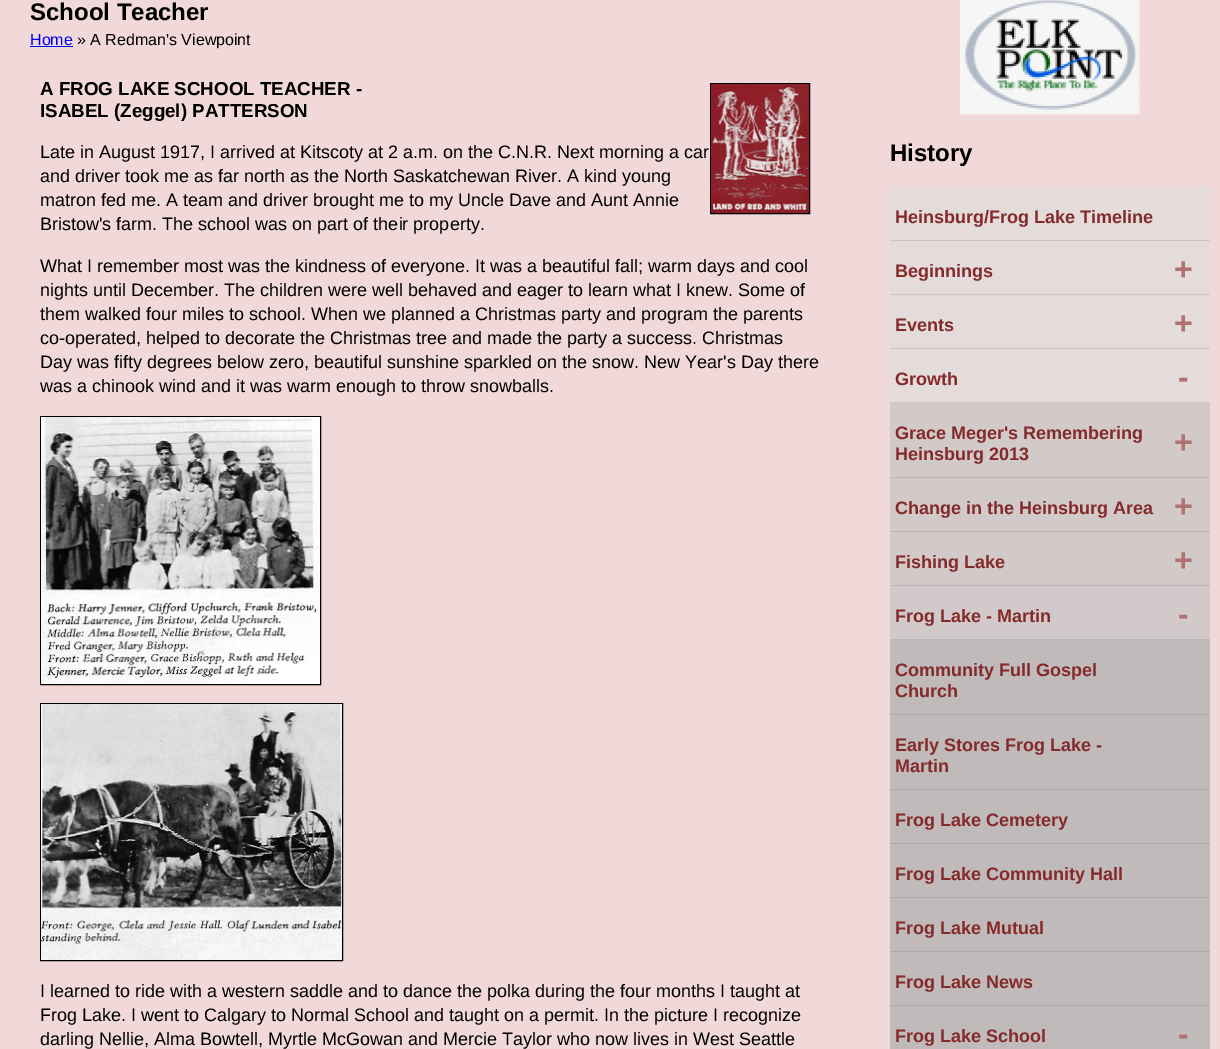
%!PS
<< /PageSize [1220 1049] >> setpagedevice
/rgb { 3 { 255 div 3 1 roll } repeat setrgbcolor } def
/font { [ exch dup neg 0 0 3 -1 roll 0 0 ] selectfont } def
/text { moveto show } def
/picture { 5 dict begin { /h /w /y /x /name } { exch def } forall
  gsave x y translate w h scale
  w h 8 [w 0 0 h 0 0] name (r) file false 3 colorimage grestore end } def
0 1049 translate 1 -1 scale
4 setmiterlimit
241 217 217 rgb
0 0 1220 1049 rectfill
0 0 238 rgb
30 46 43 1 rectfill
0 0 0 rgb
710.5 83.5 99 130 rectstroke
(img_01.rgb) 711 84 98 129 picture
40.5 416.5 280 268 rectstroke
(img_02.rgb) 41 417 279 267 picture
40.5 703.5 302 257 rectstroke
(img_03.rgb) 41 704 301 256 picture
(img_04.rgb) 960 0 180 115 picture
228 219 219 rgb
890 187 320 53 rectfill
205 197 197 rgb
890 240 320 1 rectfill
228 219 219 rgb
890 241 320 53 rectfill
205 197 197 rgb
890 294 320 1 rectfill
228 219 219 rgb
890 295 320 53 rectfill
205 197 197 rgb
890 348 320 1 rectfill
228 219 219 rgb
890 349 320 53 rectfill
205 197 197 rgb
890 402 320 1 rectfill
210 201 201 rgb
890 403 320 74 rectfill
189 181 181 rgb
890 477 320 1 rectfill
210 201 201 rgb
890 478 320 53 rectfill
189 181 181 rgb
890 531 320 1 rectfill
210 201 201 rgb
890 532 320 53 rectfill
189 181 181 rgb
890 585 320 1 rectfill
210 202 202 rgb
890 586 320 53 rectfill
189 182 182 rgb
890 639 320 1 rectfill
193 186 186 rgb
890 640 320 74 rectfill
174 167 167 rgb
890 714 320 1 rectfill
193 186 186 rgb
890 715 320 74 rectfill
174 167 167 rgb
890 789 320 1 rectfill
193 186 186 rgb
890 790 320 53 rectfill
174 167 167 rgb
890 843 320 1 rectfill
193 186 186 rgb
890 844 320 53 rectfill
174 167 167 rgb
890 897 320 1 rectfill
193 186 186 rgb
890 898 320 53 rectfill
174 167 167 rgb
890 951 320 1 rectfill
193 186 186 rgb
890 952 320 53 rectfill
174 167 167 rgb
890 1005 320 1 rectfill
193 186 186 rgb
890 1006 320 43 rectfill
/LiberationSans-Bold 24 font
0 0 0 rgb
(School Teacher) 30 20 text
/LiberationSans-Regular 16 font
0 0 238 rgb
(Home) 30 45 text
0 0 0 rgb
(» A Redman's Viewpoint) 77 45 text
/LiberationSans-Bold 18.75 font
(A FROG LAKE SCHOOL TEACHER -) 40 95 text
(ISABEL \(Zeggel\) PATTERSON) 40 117 text
/LiberationSans-Regular 18 font
(Late in August 1917, I arrived at Kitscoty at 2 a.m. on the C.N.R. Next morning a car) 40 158 text
(and driver took me as far north as the North Saskatchewan River. A kind young) 40 182 text
(matron fed me. A team and driver brought me to my Uncle Dave and Aunt Annie) 40 206 text
(Bristow's farm. The school was on part of their property.) 40 230 text
(What I remember most was the kindness of everyone. It was a beautiful fall; warm days and cool) 40 272 text
(nights until December. The children were well behaved and eager to learn what I knew. Some of) 40 296 text
(them walked four miles to school. When we planned a Christmas party and program the parents) 40 320 text
(co-operated, helped to decorate the Christmas tree and made the party a success. Christmas) 40 344 text
(Day was fifty degrees below zero, beautiful sunshine sparkled on the snow. New Year's Day there) 40 368 text
(was a chinook wind and it was warm enough to throw snowballs.) 40 392 text
(I learned to ride with a western saddle and to dance the polka during the four months I taught at) 40 997 text
(Frog Lake. I went to Calgary to Normal School and taught on a permit. In the picture I recognize) 40 1021 text
(darling Nellie, Alma Bowtell, Myrtle McGowan and Mercie Taylor who now lives in West Seattle) 40 1045 text
/LiberationSans-Bold 24 font
(History) 890 161 text
/LiberationSans-Bold 18 font
132 42 43 rgb
(Heinsburg/Frog Lake Timeline) 895 223 text
(Beginnings) 895 277 text
/LiberationSans-Bold 32 font
176 113 112 rgb
(+) 1174 280 text
/LiberationSans-Bold 18 font
132 42 43 rgb
(Events) 895 331 text
/LiberationSans-Bold 32 font
176 113 112 rgb
(+) 1174 334 text
/LiberationSans-Bold 18 font
132 42 43 rgb
(Growth) 895 385 text
/LiberationSans-Bold 32 font
176 113 112 rgb
(-) 1178 388 text
/LiberationSans-Bold 18 font
132 42 43 rgb
(Grace Meger's Remembering) 895 439 text
/LiberationSans-Bold 32 font
176 113 112 rgb
(+) 1174 453 text
/LiberationSans-Bold 18 font
132 42 43 rgb
(Heinsburg 2013) 895 460 text
(Change in the Heinsburg Area) 895 514 text
/LiberationSans-Bold 32 font
176 113 112 rgb
(+) 1174 517 text
/LiberationSans-Bold 18 font
132 42 43 rgb
(Fishing Lake) 895 568 text
/LiberationSans-Bold 32 font
176 113 112 rgb
(+) 1174 571 text
/LiberationSans-Bold 18 font
132 42 43 rgb
(Frog Lake - Martin) 895 622 text
/LiberationSans-Bold 32 font
176 113 112 rgb
(-) 1178 625 text
/LiberationSans-Bold 18 font
132 42 43 rgb
(Community Full Gospel) 895 676 text
(Church) 895 697 text
(Early Stores Frog Lake -) 895 751 text
(Martin) 895 772 text
(Frog Lake Cemetery) 895 826 text
(Frog Lake Community Hall) 895 880 text
(Frog Lake Mutual) 895 934 text
(Frog Lake News) 895 988 text
(Frog Lake School) 895 1042 text
/LiberationSans-Bold 32 font
176 113 112 rgb
(-) 1178 1045 text
showpage
